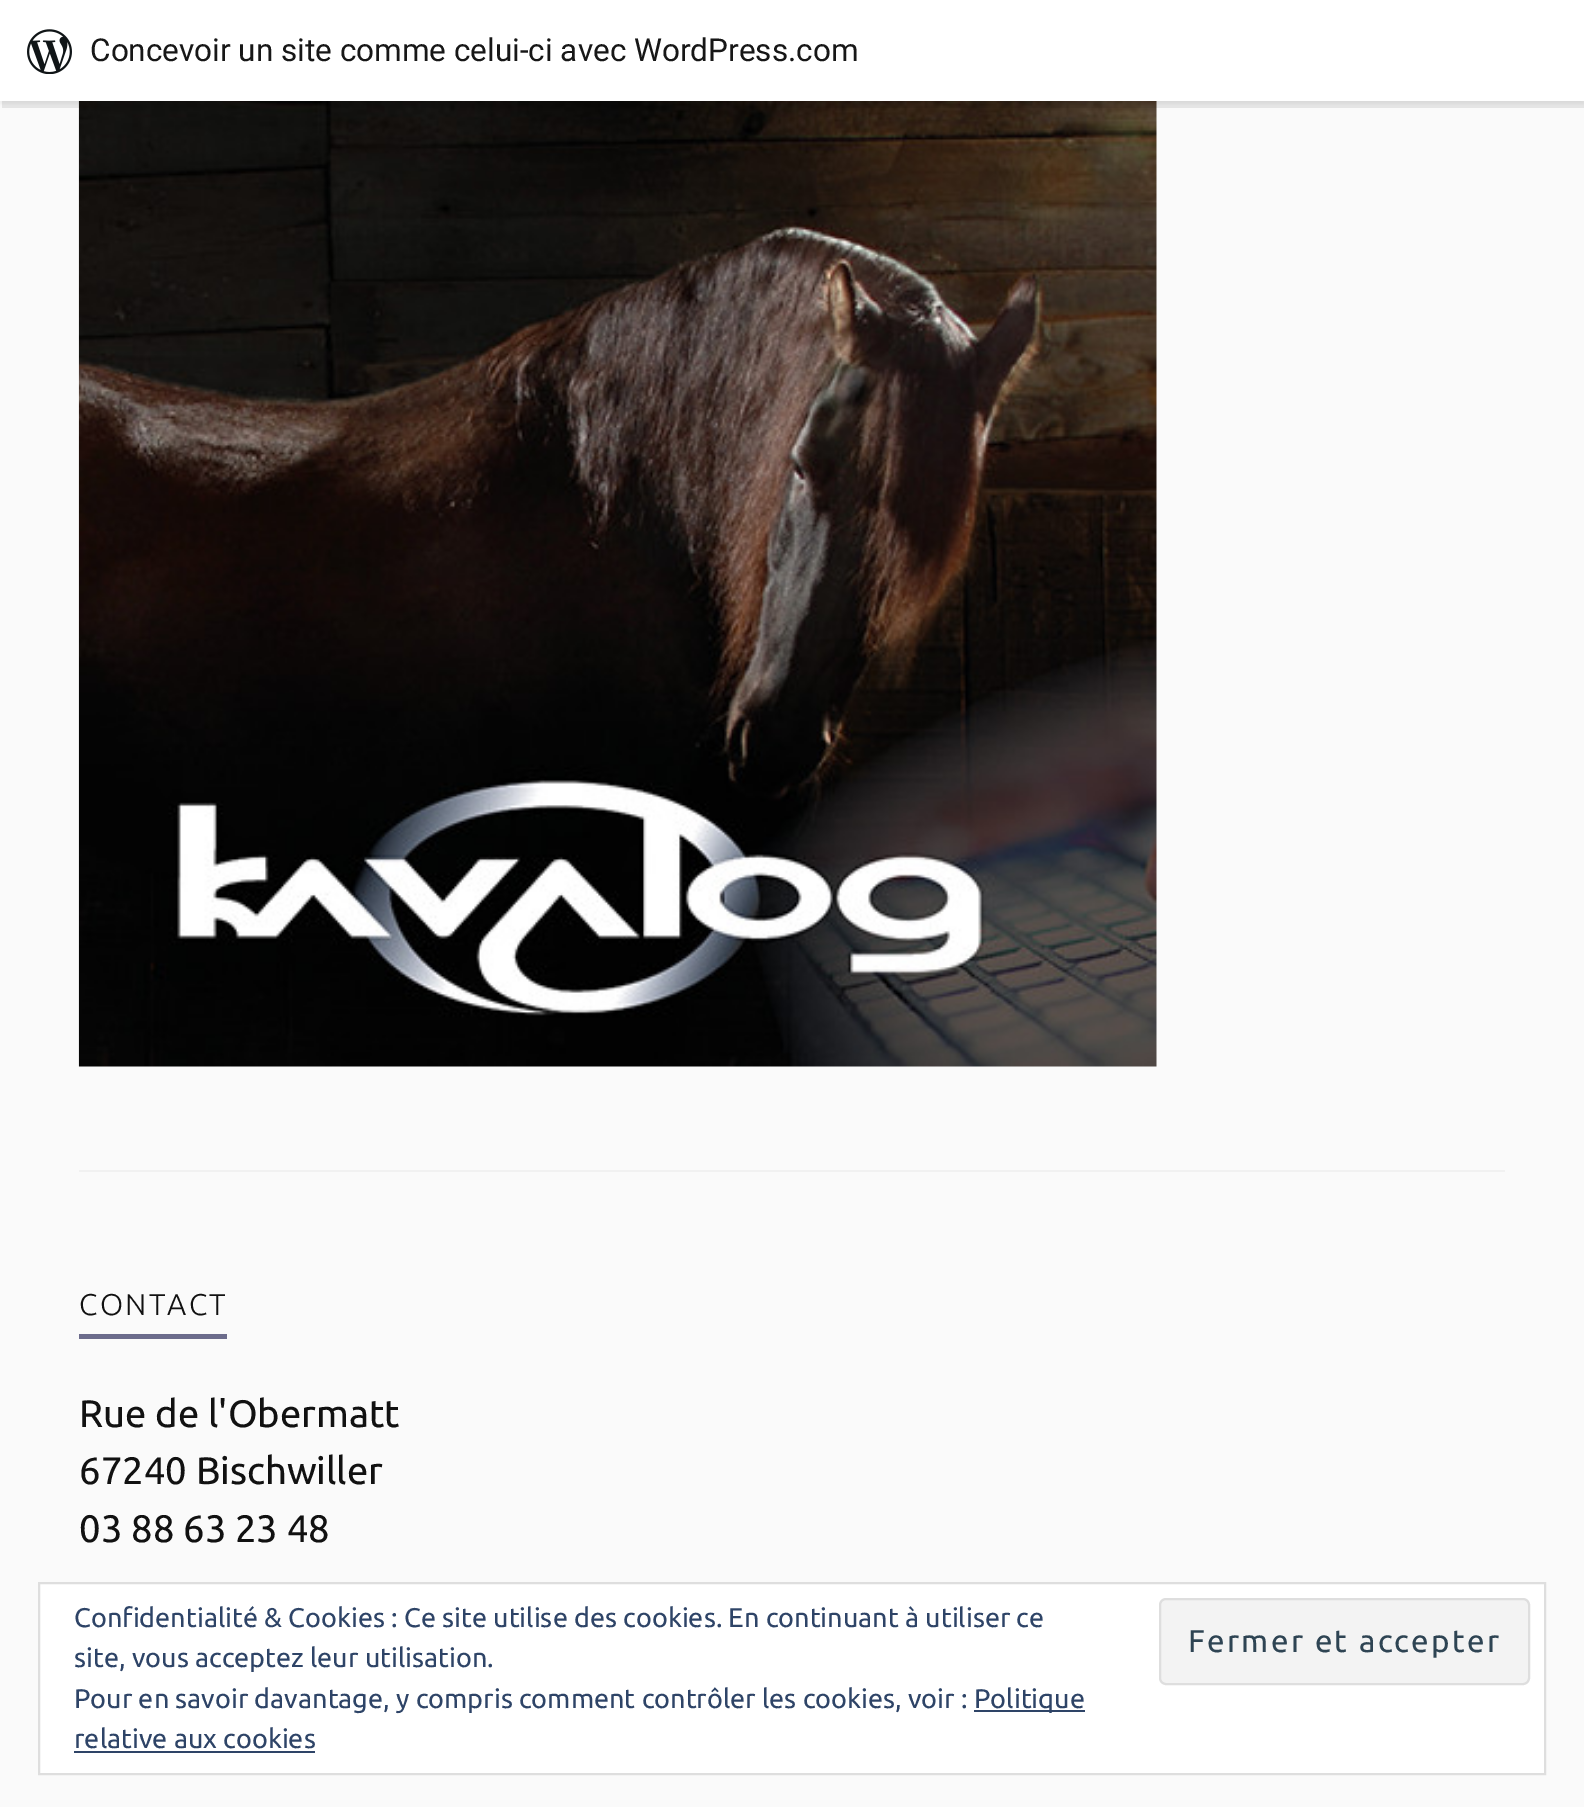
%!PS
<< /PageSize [1584 1813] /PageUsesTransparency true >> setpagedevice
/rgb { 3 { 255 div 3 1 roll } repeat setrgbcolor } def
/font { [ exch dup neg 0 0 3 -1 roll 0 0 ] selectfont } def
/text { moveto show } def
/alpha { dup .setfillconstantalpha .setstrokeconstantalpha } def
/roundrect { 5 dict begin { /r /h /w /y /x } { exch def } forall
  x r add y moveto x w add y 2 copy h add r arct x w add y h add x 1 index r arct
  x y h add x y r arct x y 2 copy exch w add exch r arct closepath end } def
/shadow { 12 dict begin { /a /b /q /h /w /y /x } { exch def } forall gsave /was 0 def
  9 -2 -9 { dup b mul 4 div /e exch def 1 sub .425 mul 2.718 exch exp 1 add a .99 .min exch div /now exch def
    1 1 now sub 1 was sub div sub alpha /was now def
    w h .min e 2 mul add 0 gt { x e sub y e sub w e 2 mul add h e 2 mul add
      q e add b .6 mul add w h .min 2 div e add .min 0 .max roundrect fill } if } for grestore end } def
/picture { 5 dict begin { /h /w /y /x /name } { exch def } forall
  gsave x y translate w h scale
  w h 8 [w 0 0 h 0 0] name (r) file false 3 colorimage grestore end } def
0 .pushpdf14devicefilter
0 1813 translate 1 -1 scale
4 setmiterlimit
250 250 250 rgb
0 0 1584 1813 rectfill
(img_02.rgb) 78 101 1079 966 picture
0 0 0 rgb
0 2 1584 102 0 2 0.05 shadow
0.08 alpha
2 101 moveto 0 7 rlineto 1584 0 rlineto 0 -101 rlineto -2 0 rlineto 0 94 rlineto closepath fill
1 alpha
255 255 255 rgb
0 0 1584 101 rectfill
(img_01.rgb) 27 29 45 45 picture
241 241 241 rgb
79 1170 1426 2 rectfill
108 108 140 rgb
79 1334 148 5 rectfill
255 255 255 rgb
0 1807 1584 6 rectfill
39 1583 moveto 1506 0 rlineto 0 191 rlineto -1506 0 rlineto closepath gsave fill grestore
222 222 222 rgb
2 setlinewidth
stroke
243 243 243 rgb
1160 1599 369 85 6 roundrect gsave fill grestore
222 222 222 rgb
stroke
46 68 103 rgb
974 1710 111 2 rectfill
74 1751 241 2 rectfill
/Roboto-Regular 31.5 font
23 23 23 rgb
(Concevoir un site comme celui-ci avec WordPress.com) 90 61 text
/Ubuntu-Light 30 font
17 17 17 rgb
79 1315 moveto 2.25 0 (CONTACT) ashow
/Ubuntu-Regular 38.25 font
(Rue de l'Obermatt) 79 1427 text
(67240 Bischwiller) 79 1484 text
(03 88 63 23 48) 79 1542 text
/Ubuntu-Regular 27 font
46 68 103 rgb
(Confidentialité & Cookies : Ce site utilise des cookies. En continuant à utiliser ce) 74 1627 text
(site, vous acceptez leur utilisation.) 74 1667 text
/Ubuntu-Regular 31.5 font
46 68 83 rgb
1188 1652 moveto 2.25 0 (Fermer et accepter) ashow
/Ubuntu-Regular 27 font
46 68 103 rgb
(Pour en savoir davantage, y compris comment contrôler les cookies, voir :) 74 1708 text
(Politique) 974 1708 text
(relative aux cookies) 74 1748 text
.poppdf14devicefilter showpage
